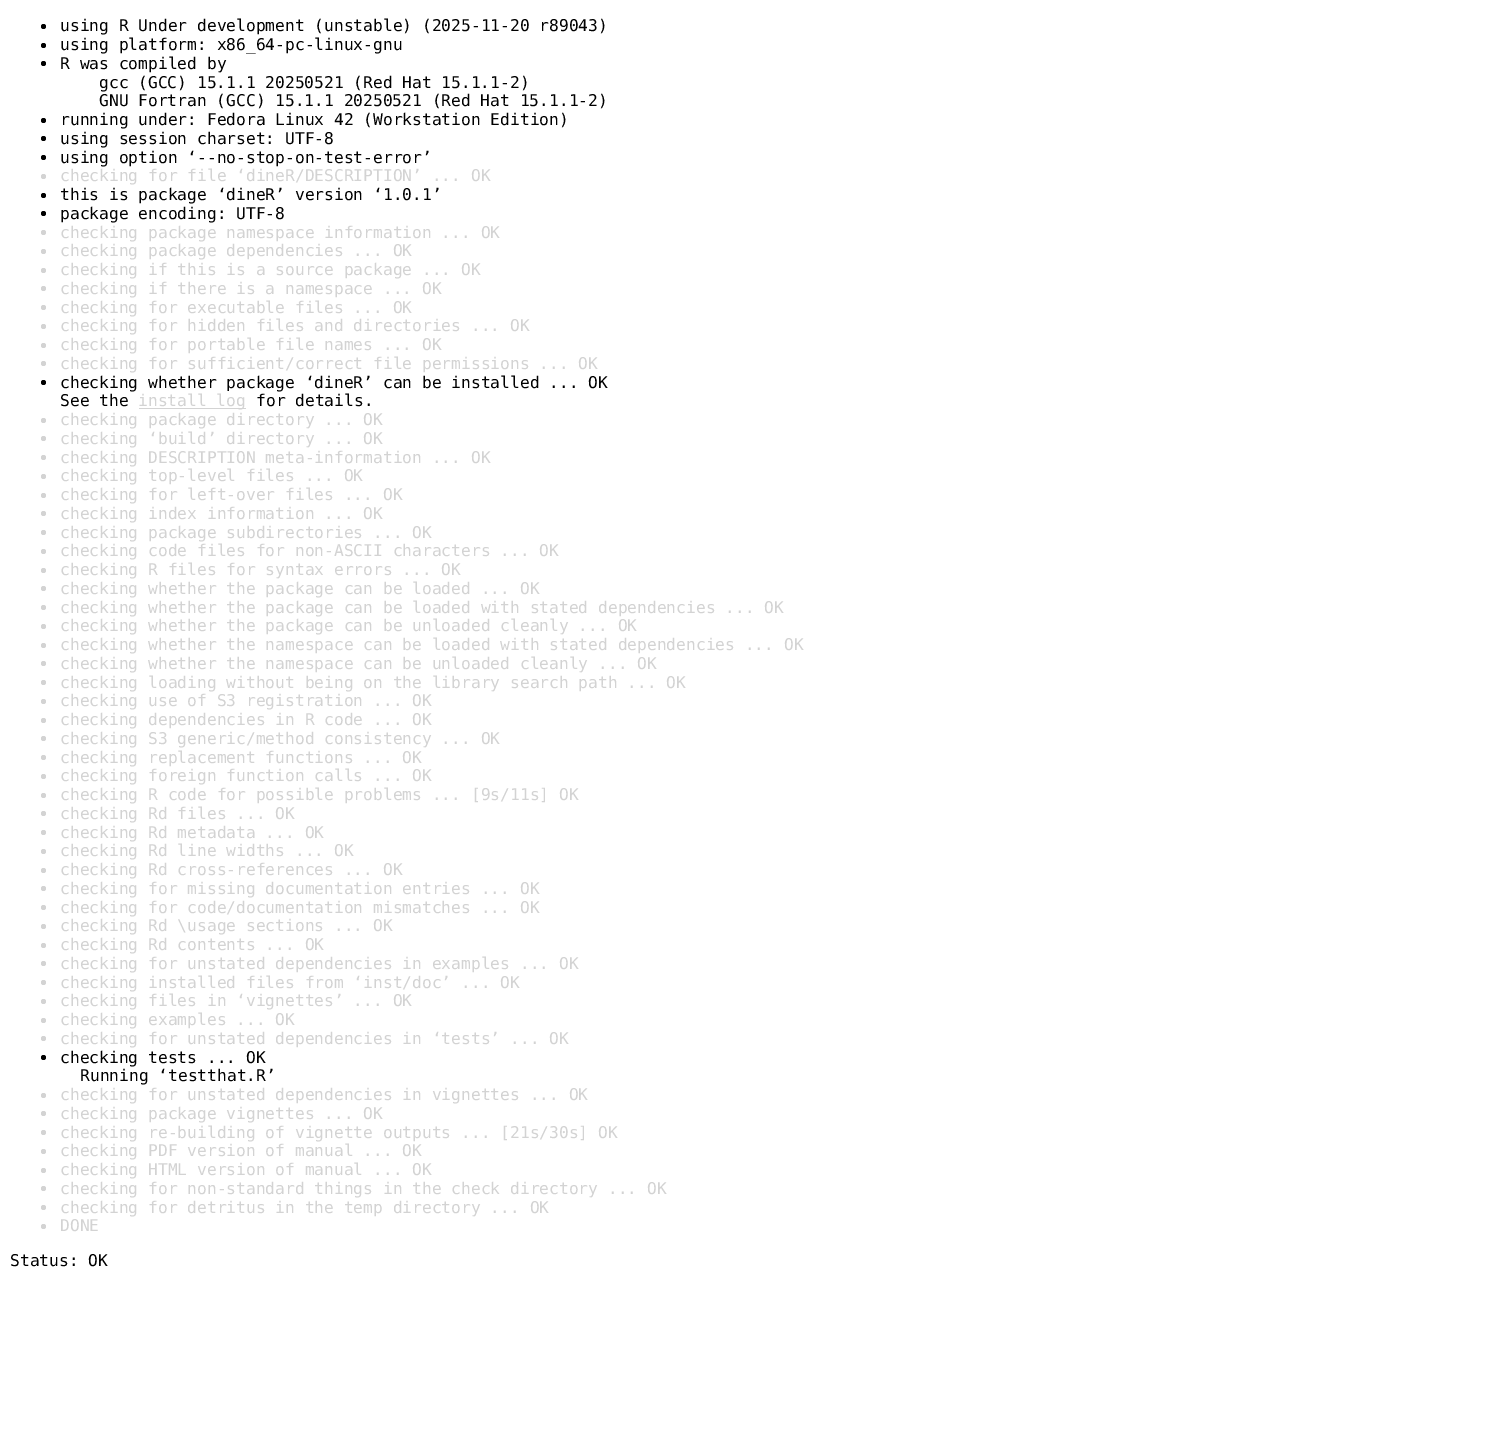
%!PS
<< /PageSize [1495 1453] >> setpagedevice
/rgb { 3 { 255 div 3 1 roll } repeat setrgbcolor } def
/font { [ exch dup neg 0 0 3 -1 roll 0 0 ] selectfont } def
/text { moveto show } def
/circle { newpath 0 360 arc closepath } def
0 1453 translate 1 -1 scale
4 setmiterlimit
255 255 255 rgb
0 0 1495 1453 rectfill
0 0 0 rgb
43.5 26.5 2.5 circle fill
43.5 45.5 2.5 circle fill
43.5 63.5 2.5 circle fill
43.5 120.5 2.5 circle fill
43.5 138.5 2.5 circle fill
43.5 157.5 2.5 circle fill
211 211 211 rgb
43.5 176.5 2.5 circle fill
0 0 0 rgb
43.5 195.5 2.5 circle fill
43.5 213.5 2.5 circle fill
211 211 211 rgb
43.5 232.5 2.5 circle fill
43.5 251.5 2.5 circle fill
43.5 270.5 2.5 circle fill
43.5 288.5 2.5 circle fill
43.5 307.5 2.5 circle fill
43.5 326.5 2.5 circle fill
43.5 345.5 2.5 circle fill
43.5 363.5 2.5 circle fill
0 0 0 rgb
43.5 382.5 2.5 circle fill
211 211 211 rgb
139 408 107 1 rectfill
43.5 420.5 2.5 circle fill
43.5 438.5 2.5 circle fill
43.5 457.5 2.5 circle fill
43.5 476.5 2.5 circle fill
43.5 495.5 2.5 circle fill
43.5 513.5 2.5 circle fill
43.5 532.5 2.5 circle fill
43.5 551.5 2.5 circle fill
43.5 570.5 2.5 circle fill
43.5 588.5 2.5 circle fill
43.5 607.5 2.5 circle fill
43.5 626.5 2.5 circle fill
43.5 645.5 2.5 circle fill
43.5 663.5 2.5 circle fill
43.5 682.5 2.5 circle fill
43.5 701.5 2.5 circle fill
43.5 720.5 2.5 circle fill
43.5 738.5 2.5 circle fill
43.5 757.5 2.5 circle fill
43.5 776.5 2.5 circle fill
43.5 795.5 2.5 circle fill
43.5 813.5 2.5 circle fill
43.5 832.5 2.5 circle fill
43.5 851.5 2.5 circle fill
43.5 870.5 2.5 circle fill
43.5 888.5 2.5 circle fill
43.5 907.5 2.5 circle fill
43.5 926.5 2.5 circle fill
43.5 945.5 2.5 circle fill
43.5 963.5 2.5 circle fill
43.5 982.5 2.5 circle fill
43.5 1001.5 2.5 circle fill
43.5 1020.5 2.5 circle fill
43.5 1038.5 2.5 circle fill
0 0 0 rgb
43.5 1057.5 2.5 circle fill
211 211 211 rgb
43.5 1095.5 2.5 circle fill
43.5 1113.5 2.5 circle fill
43.5 1132.5 2.5 circle fill
43.5 1151.5 2.5 circle fill
43.5 1170.5 2.5 circle fill
43.5 1188.5 2.5 circle fill
43.5 1207.5 2.5 circle fill
43.5 1226.5 2.5 circle fill
/DejaVuSansMono-Regular 16.25 font
0 0 0 rgb
(using R Under development \(unstable\) \(2025-11-20 r89043\)) 60 31 text
(using platform: x86_64-pc-linux-gnu) 60 50 text
(R was compiled by) 60 69 text
(gcc \(GCC\) 15.1.1 20250521 \(Red Hat 15.1.1-2\)) 99 88 text
(GNU Fortran \(GCC\) 15.1.1 20250521 \(Red Hat 15.1.1-2\)) 99 106 text
(running under: Fedora Linux 42 \(Workstation Edition\)) 60 125 text
(using session charset: UTF-8) 60 144 text
(using option ‘--no-stop-on-test-error’) 60 163 text
211 211 211 rgb
(checking for file ‘dineR/DESCRIPTION’ ... OK) 60 181 text
0 0 0 rgb
(this is package ‘dineR’ version ‘1.0.1’) 60 200 text
(package encoding: UTF-8) 60 219 text
211 211 211 rgb
(checking package namespace information ... OK) 60 238 text
(checking package dependencies ... OK) 60 256 text
(checking if this is a source package ... OK) 60 275 text
(checking if there is a namespace ... OK) 60 294 text
(checking for executable files ... OK) 60 313 text
(checking for hidden files and directories ... OK) 60 331 text
(checking for portable file names ... OK) 60 350 text
(checking for sufficient/correct file permissions ... OK) 60 369 text
0 0 0 rgb
(checking whether package ‘dineR’ can be installed ... OK) 60 388 text
(See the) 60 406 text
211 211 211 rgb
(install log) 138 406 text
255 255 255 rgb
227 391 3 1 rectfill
0 0 0 rgb
(for details.) 256 406 text
211 211 211 rgb
(checking package directory ... OK) 60 425 text
(checking ‘build’ directory ... OK) 60 444 text
(checking DESCRIPTION meta-information ... OK) 60 463 text
(checking top-level files ... OK) 60 481 text
(checking for left-over files ... OK) 60 500 text
(checking index information ... OK) 60 519 text
(checking package subdirectories ... OK) 60 538 text
(checking code files for non-ASCII characters ... OK) 60 556 text
(checking R files for syntax errors ... OK) 60 575 text
(checking whether the package can be loaded ... OK) 60 594 text
(checking whether the package can be loaded with stated dependencies ... OK) 60 613 text
(checking whether the package can be unloaded cleanly ... OK) 60 631 text
(checking whether the namespace can be loaded with stated dependencies ... OK) 60 650 text
(checking whether the namespace can be unloaded cleanly ... OK) 60 669 text
(checking loading without being on the library search path ... OK) 60 688 text
(checking use of S3 registration ... OK) 60 706 text
(checking dependencies in R code ... OK) 60 725 text
(checking S3 generic/method consistency ... OK) 60 744 text
(checking replacement functions ... OK) 60 763 text
(checking foreign function calls ... OK) 60 781 text
(checking R code for possible problems ... [9s/11s] OK) 60 800 text
(checking Rd files ... OK) 60 819 text
(checking Rd metadata ... OK) 60 838 text
(checking Rd line widths ... OK) 60 856 text
(checking Rd cross-references ... OK) 60 875 text
(checking for missing documentation entries ... OK) 60 894 text
(checking for code/documentation mismatches ... OK) 60 913 text
(checking Rd \\usage sections ... OK) 60 931 text
(checking Rd contents ... OK) 60 950 text
(checking for unstated dependencies in examples ... OK) 60 969 text
(checking installed files from ‘inst/doc’ ... OK) 60 988 text
(checking files in ‘vignettes’ ... OK) 60 1006 text
(checking examples ... OK) 60 1025 text
(checking for unstated dependencies in ‘tests’ ... OK) 60 1044 text
0 0 0 rgb
(checking tests ... OK) 60 1063 text
(Running ‘testthat.R’) 80 1081 text
211 211 211 rgb
(checking for unstated dependencies in vignettes ... OK) 60 1100 text
(checking package vignettes ... OK) 60 1119 text
(checking re-building of vignette outputs ... [21s/30s] OK) 60 1138 text
(checking PDF version of manual ... OK) 60 1156 text
(checking HTML version of manual ... OK) 60 1175 text
(checking for non-standard things in the check directory ... OK) 60 1194 text
(checking for detritus in the temp directory ... OK) 60 1213 text
(DONE) 60 1231 text
0 0 0 rgb
(Status: OK) 10 1266 text
showpage
